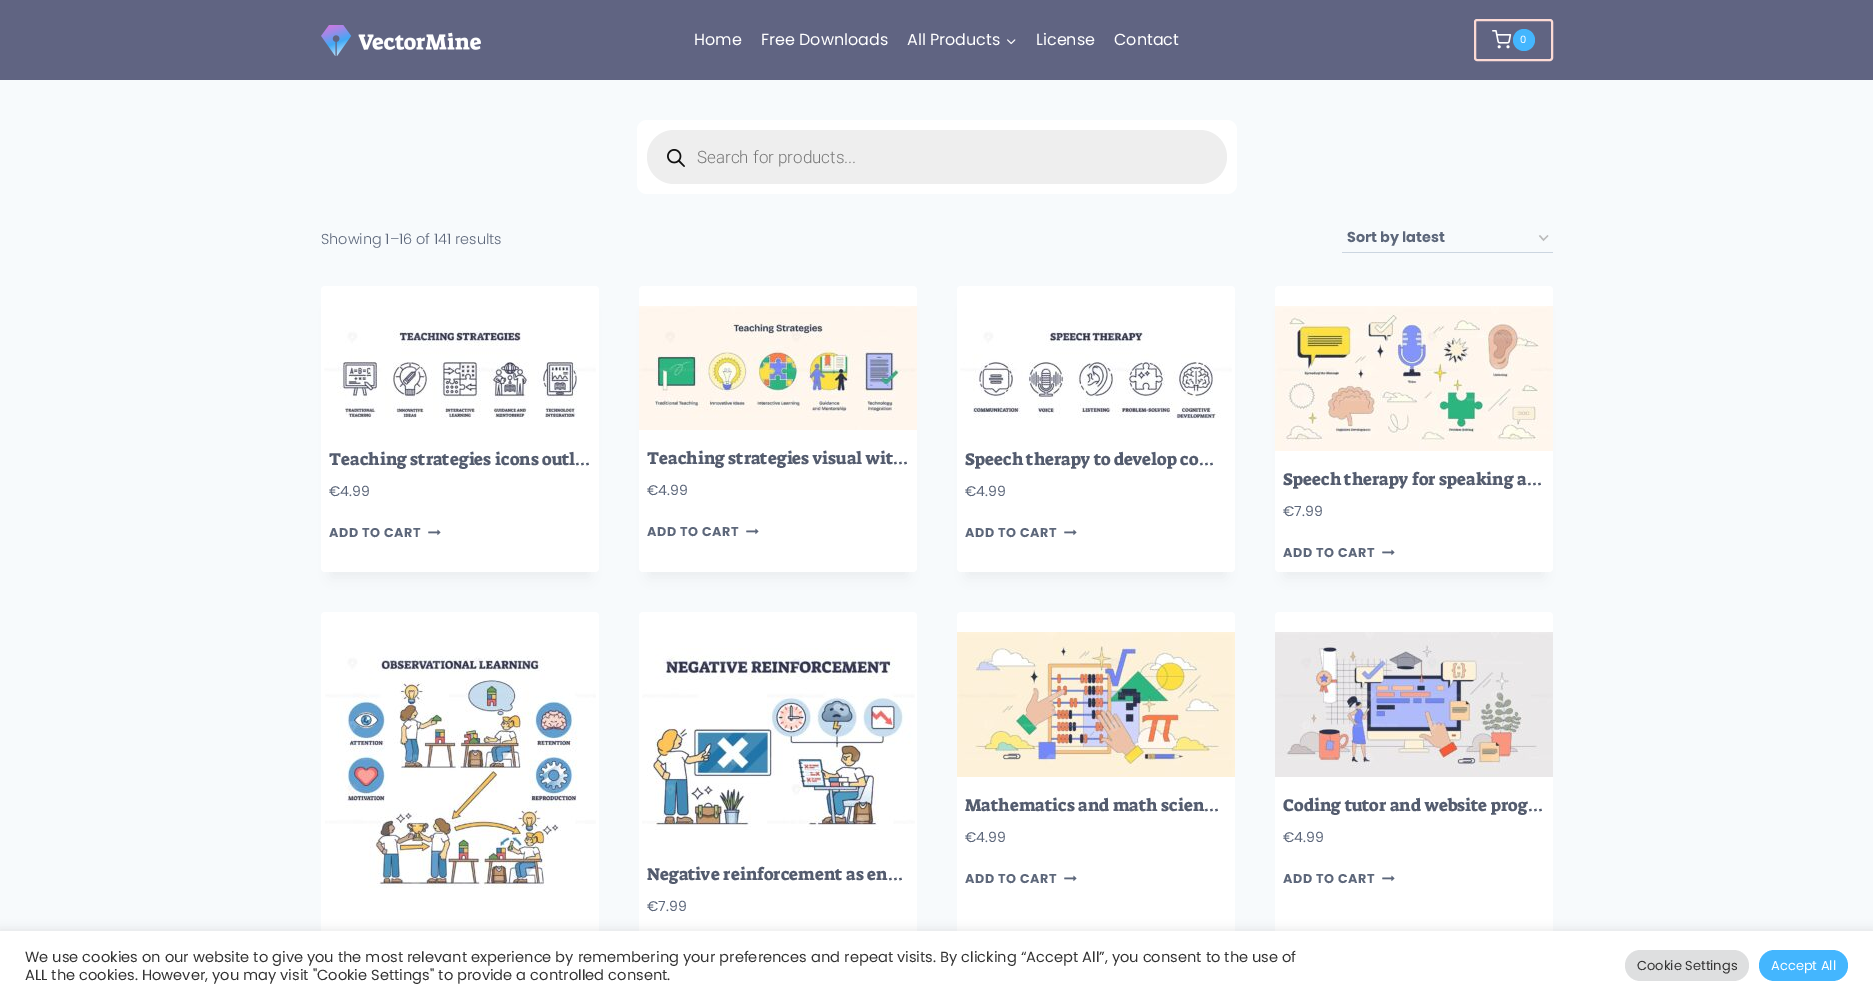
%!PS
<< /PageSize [1873 1000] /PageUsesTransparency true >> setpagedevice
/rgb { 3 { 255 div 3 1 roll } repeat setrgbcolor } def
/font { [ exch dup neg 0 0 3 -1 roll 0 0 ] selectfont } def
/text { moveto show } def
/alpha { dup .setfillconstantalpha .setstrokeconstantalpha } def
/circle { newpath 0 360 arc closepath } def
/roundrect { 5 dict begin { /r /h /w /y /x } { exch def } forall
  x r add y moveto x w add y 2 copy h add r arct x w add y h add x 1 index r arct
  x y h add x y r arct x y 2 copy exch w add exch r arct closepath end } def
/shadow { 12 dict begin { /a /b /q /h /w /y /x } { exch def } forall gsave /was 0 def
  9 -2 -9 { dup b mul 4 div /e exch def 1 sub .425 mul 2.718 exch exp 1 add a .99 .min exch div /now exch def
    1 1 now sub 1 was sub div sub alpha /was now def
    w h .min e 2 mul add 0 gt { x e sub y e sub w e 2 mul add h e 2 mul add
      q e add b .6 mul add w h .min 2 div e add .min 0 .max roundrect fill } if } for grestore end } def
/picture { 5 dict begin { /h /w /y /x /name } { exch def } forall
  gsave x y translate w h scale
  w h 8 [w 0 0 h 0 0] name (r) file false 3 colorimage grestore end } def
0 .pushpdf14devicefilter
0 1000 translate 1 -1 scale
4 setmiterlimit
247 250 252 rgb
0 0 1873 1000 rectfill
96 100 130 rgb
0 0 1873 80 rectfill
(img_01.rgb) 321 25 160 31 picture
(img_02.rgb) 1007 39 9 6 picture
252 218 212 rgb
2 setlinewidth
1475 20 77 40 2 roundrect stroke
(img_03.rgb) 1492 30 20 19 picture
68 182 254 rgb
1524 40 11 circle fill
255 255 255 rgb
637 120 600 74 10 roundrect fill
238 238 238 rgb
647 130 580 54 27 roundrect fill
(img_04.rgb) 667 149 18 18 picture
187 187 187 rgb
1.4 setlinewidth
1539.5 235.5 moveto 4 4.5 rlineto 4.5 -4.5 rlineto stroke
203 213 224 rgb
1342 252 211 1 rectfill
0 0 0 rgb
331 311 258 266 0 7.5 0.05 shadow
255 255 255 rgb
321 286 278 286 4 roundrect fill
(img_05.rgb) 324 330 272 88 picture
(img_06.rgb) 428 529 13 7 picture
0 0 0 rgb
649 311 258 266 0 7.5 0.05 shadow
255 255 255 rgb
639 286 278 286 4 roundrect fill
(img_07.rgb) 639 306 278 124 picture
(img_06.rgb) 746 528 13 7 picture
0 0 0 rgb
967 311 258 266 0 7.5 0.05 shadow
255 255 255 rgb
957 286 278 286 4 roundrect fill
(img_08.rgb) 960 330 272 89 picture
(img_06.rgb) 1064 529 13 7 picture
0 0 0 rgb
1285 311 258 266 0 7.5 0.05 shadow
255 255 255 rgb
1275 286 278 286 4 roundrect fill
(img_09.rgb) 1275 306 278 145 picture
(img_06.rgb) 1382 549 13 7 picture
321 612 278 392 4 roundrect fill
(img_10.rgb) 325 656 271 232 picture
957 612 278 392 4 roundrect fill
(img_11.rgb) 957 632 278 145 picture
(img_06.rgb) 1064 875 13 7 picture
1275 612 278 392 4 roundrect fill
(img_12.rgb) 1275 632 278 145 picture
(img_06.rgb) 1382 875 13 7 picture
639 612 278 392 4 roundrect fill
(img_13.rgb) 642 648 273 182 picture
172 171 171 rgb
0 930 1873 69 0 5 0.3 shadow
255 255 255 rgb
0 931 1873 69 rectfill
222 223 224 rgb
1625 950 124 31 15.5 roundrect fill
68 182 254 rgb
1759 950 89 31 15.5 roundrect fill
/Poppins-Regular 16 font
255 255 255 rgb
(Home) 694 45 text
(Free Downloads) 761 45 text
(All Products) 907 45 text
(License) 1036 45 text
(Contact) 1114 45 text
/Poppins-Regular 10 font
(0) 1520 43 text
/Roboto-Light 17 font
119 119 119 rgb
(Search for products...) 697 163 text
/Poppins-Light 14.4 font
93 103 122 rgb
(Showing 1–16 of 141 results) 321 244 text
/Poppins-Bold 14.4 font
(Sort by latest) 1347 242 text
/SuezOne-Regular 17.25 font
84 92 110 rgb
(Teaching strategies icons outl…) 329 465 text
/Poppins-Regular 14 font
93 103 122 rgb
(€4.99) 329 496 text
/Poppins-Bold 12.75 font
329 537 moveto 0.6 0 (ADD TO CART) ashow
/SuezOne-Regular 17.25 font
84 92 110 rgb
(Teaching strategies visual wit…) 647 464 text
/Poppins-Regular 14 font
93 103 122 rgb
(€4.99) 647 495 text
/Poppins-Bold 12.75 font
647 536 moveto 0.6 0 (ADD TO CART) ashow
/SuezOne-Regular 17.25 font
84 92 110 rgb
(Speech therapy to develop co…) 965 465 text
/Poppins-Regular 14 font
93 103 122 rgb
(€4.99) 965 496 text
/Poppins-Bold 12.75 font
965 537 moveto 0.6 0 (ADD TO CART) ashow
/SuezOne-Regular 17.25 font
84 92 110 rgb
(Speech therapy for speaking a…) 1283 485 text
/Poppins-Regular 14 font
93 103 122 rgb
(€7.99) 1283 516 text
/Poppins-Bold 12.75 font
1283 557 moveto 0.6 0 (ADD TO CART) ashow
/SuezOne-Regular 17.25 font
84 92 110 rgb
(Mathematics and math scien…) 965 811 text
/Poppins-Regular 14 font
93 103 122 rgb
(€4.99) 965 842 text
/Poppins-Bold 12.75 font
965 883 moveto 0.6 0 (ADD TO CART) ashow
/SuezOne-Regular 17.25 font
84 92 110 rgb
(Coding tutor and website prog…) 1283 811 text
/Poppins-Regular 14 font
93 103 122 rgb
(€4.99) 1283 842 text
/Poppins-Bold 12.75 font
1283 883 moveto 0.6 0 (ADD TO CART) ashow
/SuezOne-Regular 17.25 font
84 92 110 rgb
(Negative reinforcement as en…) 647 880 text
/Poppins-Regular 14 font
93 103 122 rgb
(€7.99) 647 911 text
/Poppins-Regular 14.67 font
51 51 51 rgb
(We use cookies on our website to give you the most relevant experience by remembering your preferences and repeat visits. By clicking “Accept All”, you consent to the use of) 25 962 text
(ALL the cookies. However, you may visit "Cookie Settings" to provide a controlled consent.) 25 980 text
/Poppins-Regular 13 font
(Cookie Settings) 1637 970 text
255 255 255 rgb
(Accept All) 1771 970 text
.poppdf14devicefilter showpage
